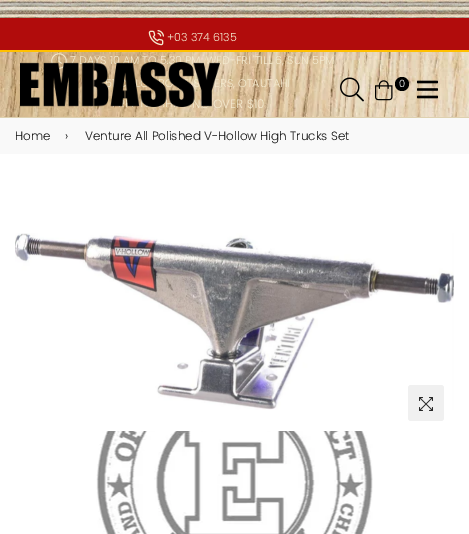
%!PS
<< /PageSize [469 534] >> setpagedevice
/rgb { 3 { 255 div 3 1 roll } repeat setrgbcolor } def
/font { [ exch dup neg 0 0 3 -1 roll 0 0 ] selectfont } def
/text { moveto show } def
/circle { newpath 0 360 arc closepath } def
/roundrect { 5 dict begin { /r /h /w /y /x } { exch def } forall
  x r add y moveto x w add y 2 copy h add r arct x w add y h add x 1 index r arct
  x y h add x y r arct x y 2 copy exch w add exch r arct closepath end } def
/picture { 5 dict begin { /h /w /y /x /name } { exch def } forall
  gsave x y translate w h scale
  w h 8 [w 0 0 h 0 0] name (r) file false 3 colorimage grestore end } def
0 534 translate 1 -1 scale
4 setmiterlimit
255 255 255 rgb
0 0 469 534 rectfill
(img_01.rgb) 0 0 469 18 picture
177 12 12 rgb
0 18 469 32 rectfill
255 192 0 rgb
0 50 469 2 rectfill
(img_02.rgb) 148 30 16 16 picture
(img_04.rgb) 0 52 469 65 picture
(img_03.rgb) 51 53 16 16 picture
222 209 176 rgb
0 117 469 1 rectfill
(img_06.rgb) 340 77 24 25 picture
(img_07.rgb) 375 80 18 21 picture
0 0 0 rgb
402 84 7 circle fill
(img_08.rgb) 417 80 21 19 picture
249 249 249 rgb
0 118 469 36 rectfill
(img_09.rgb) 96 431 277 103 picture
(img_10.rgb) 15 233 439 177 picture
240 240 240 rgb
408 385 36 36 3 roundrect fill
(img_11.rgb) 419 397 14 14 picture
/Poppins-Light 11.1 font
244 234 207 rgb
(+03 374 6135) 167 41 text
(7 DAYS 10 AM TO 5.30 PM, WED-FRI 'TILL 6, SUN 5PM) 70 64 text
(L) 135 87 text
(RS, OTAUTAHI) 220 87 text
/Poppins-Light 12 font
(NG OVER $10) 192 108 text
(img_05.rgb) 20 62 200 45 picture
/Poppins-Light 10 font
255 255 255 rgb
(0) 399 87 text
/Poppins-Light 12 font
17 17 17 rgb
(Home) 15 140 text
(›) 65 140 text
(Venture All Polished V-Hollow High Trucks Set) 85 140 text
showpage
